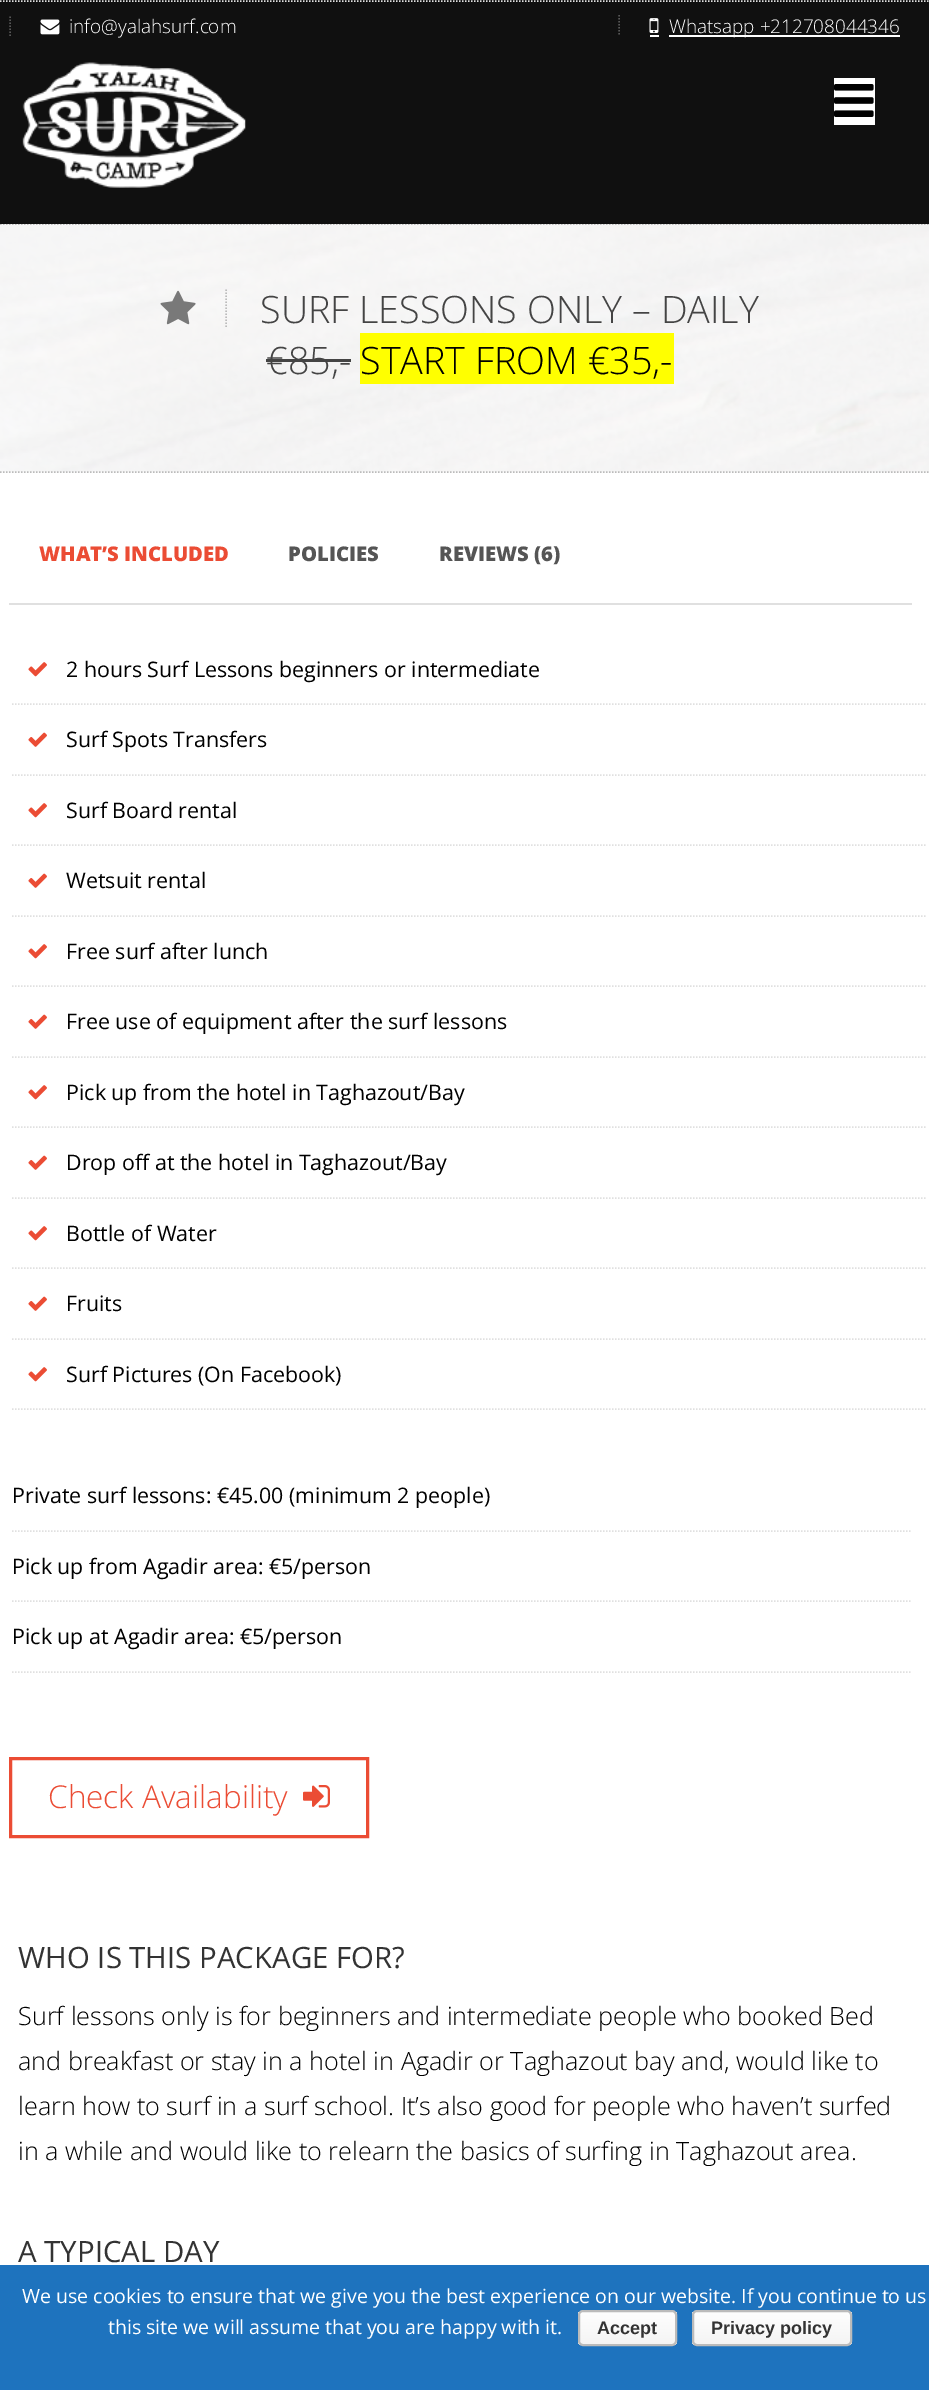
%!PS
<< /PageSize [929 2390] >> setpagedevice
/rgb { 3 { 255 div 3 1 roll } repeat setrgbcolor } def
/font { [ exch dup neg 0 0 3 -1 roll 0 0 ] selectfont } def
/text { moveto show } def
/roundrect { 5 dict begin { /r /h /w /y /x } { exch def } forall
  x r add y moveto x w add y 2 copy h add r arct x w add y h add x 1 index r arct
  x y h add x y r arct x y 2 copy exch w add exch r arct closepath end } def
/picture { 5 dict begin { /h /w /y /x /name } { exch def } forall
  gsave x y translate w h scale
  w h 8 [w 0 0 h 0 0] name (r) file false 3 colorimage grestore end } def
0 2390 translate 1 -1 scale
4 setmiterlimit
255 255 255 rgb
0 0 929 2390 rectfill
(img_05.rgb) 0 224 929 249 picture
187 187 187 rgb
1.5 setlinewidth
[1.5 1.5] 0 setdash
0 224 moveto 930 0 rlineto stroke
16 16 16 rgb
0 0 929 224 rectfill
224 224 224 rgb
0 1 moveto 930 0 rlineto stroke
88 88 88 rgb
10 16.5 moveto 0 19.5 rlineto stroke
(img_01.rgb) 40 19 20 16 picture
(img_02.rgb) 649 18 10 15 picture
619 15 moveto 0 21 rlineto stroke
255 255 255 rgb
650 35 9 2 rectfill
669 35 231 2 rectfill
(img_03.rgb) 22 62 224 126 picture
834 78 41 47 rectfill
(img_04.rgb) 834 84 40 33 picture
187 187 187 rgb
0 472 moveto 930 0 rlineto stroke
(img_06.rgb) 160 290 36 35 picture
226 289.5 moveto 0 39 rlineto stroke
68 68 68 rgb
266 359 85 3 rectfill
255 255 0 rgb
360 333 314 51 rectfill
224 224 224 rgb
9 603 903 2 rectfill
12 704 moveto 915 0 rlineto stroke
(img_07.rgb) 28 662 19 15 picture
12 775 moveto 915 0 rlineto stroke
(img_08.rgb) 28 732 19 15 picture
12 845 moveto 915 0 rlineto stroke
(img_07.rgb) 28 803 19 15 picture
12 916 moveto 915 0 rlineto stroke
(img_08.rgb) 28 873 19 15 picture
12 986 moveto 915 0 rlineto stroke
(img_07.rgb) 28 944 19 15 picture
12 1057 moveto 915 0 rlineto stroke
(img_08.rgb) 28 1014 19 15 picture
12 1127 moveto 915 0 rlineto stroke
(img_07.rgb) 28 1085 19 15 picture
12 1198 moveto 915 0 rlineto stroke
(img_08.rgb) 28 1155 19 15 picture
12 1268 moveto 915 0 rlineto stroke
(img_07.rgb) 28 1226 19 15 picture
12 1339 moveto 915 0 rlineto stroke
(img_08.rgb) 28 1296 19 15 picture
12 1409 moveto 915 0 rlineto stroke
(img_07.rgb) 28 1367 19 15 picture
12 1531 moveto 900 0 rlineto stroke
12 1601 moveto 900 0 rlineto stroke
12 1672 moveto 900 0 rlineto stroke
235 76 52 rgb
3 setlinewidth
[] 0 setdash
10.5 1758.5 357 78 rectstroke
(img_09.rgb) 303 1785 27 23 picture
30 115 190 rgb
0 2265 929 125 rectfill
gsave
578 2310 99 36 5 roundrect clip newpath
gsave 578 2312 moveto 99 0 rlineto 0 33 rlineto -99 0 rlineto closepath clip newpath
<< /ShadingType 2 /ColorSpace /DeviceRGB /Coords [627 2312 627 2345] /Extend [true true] /Function << /FunctionType 2 /Domain [0 1] /C0 [0.996 0.996 0.996] /C1 [0.957 0.957 0.957] /N 1 >> >> shfill grestore
grestore
187 187 187 rgb
2 setlinewidth
579 2311 97 34 4 roundrect stroke
gsave
692 2310 160 36 5 roundrect clip newpath
gsave 692 2312 moveto 160 0 rlineto 0 33 rlineto -160 0 rlineto closepath clip newpath
<< /ShadingType 2 /ColorSpace /DeviceRGB /Coords [772 2312 772 2345] /Extend [true true] /Function << /FunctionType 2 /Domain [0 1] /C0 [0.996 0.996 0.996] /C1 [0.957 0.957 0.957] /N 1 >> >> shfill grestore
grestore
693 2311 158 34 4 roundrect stroke
/OpenSans-Light 18.9 font
255 255 255 rgb
(info@yalahsurf.com) 69 33 text
(Whatsapp +212708044346) 669 33 text
/OpenSans-Light 37.75 font
68 68 68 rgb
(SURF LESSONS ONLY – DAILY) 260 323 text
(€85,-) 266 374 text
0 0 0 rgb
(START FROM €35,-) 360 374 text
/OpenSans-ExtraBold 20.25 font
235 76 52 rgb
(WHAT’S INCLUDED) 39 561 text
85 85 85 rgb
(POLICIES) 288 561 text
(REVIEWS \(6\)) 439 561 text
/OpenSans-Regular 21.4 font
0 0 0 rgb
(2 hours Surf Lessons beginners or intermediate) 66 677 text
(Surf Spots Transfers) 66 747 text
(Surf Board rental) 66 818 text
(Wetsuit rental) 66 888 text
(Free surf after lunch) 66 959 text
(Free use of equipment after the surf lessons) 66 1029 text
(Pick up from the hotel in Taghazout/Bay) 66 1100 text
(Drop off at the hotel in Taghazout/Bay) 66 1170 text
(Bottle of Water) 66 1241 text
(Fruits) 66 1311 text
(Surf Pictures \(On Facebook\)) 66 1382 text
(Private surf lessons: €45.00 \(minimum 2 people\)) 12 1503 text
(Pick up from Agadir area: €5/person) 12 1574 text
(Pick up at Agadir area: €5/person) 12 1644 text
/OpenSans-Light 31.5 font
235 76 52 rgb
(Check Availability) 48 1808 text
/OpenSans-Regular 29.4 font
51 51 51 rgb
(WHO IS THIS PACKAGE FOR?) 18 1968 text
/OpenSans-Light 25.2 font
0 0 0 rgb
(Surf lessons only is for beginners and intermediate people who booked Bed) 18 2025 text
(and breakfast or stay in a hotel in Agadir or Taghazout bay and, would like to) 18 2070 text
(learn how to surf in a surf school. It’s also good for people who haven’t surfed) 18 2115 text
(in a while and would like to relearn the basics of surfing in Taghazout area.) 18 2160 text
/OpenSans-Regular 29.4 font
51 51 51 rgb
(A TYPICAL DAY) 18 2262 text
/OpenSans-Regular 19.5 font
255 255 255 rgb
(We use cookies to ensure that we give you the best experience on our website. If you continue to us) 22 2303 text
(this site we will assume that you are happy with it.) 108 2334 text
/LiberationSans-Bold 18 font
51 51 51 rgb
(Accept) 597 2334 text
(Privacy policy) 711 2334 text
showpage
